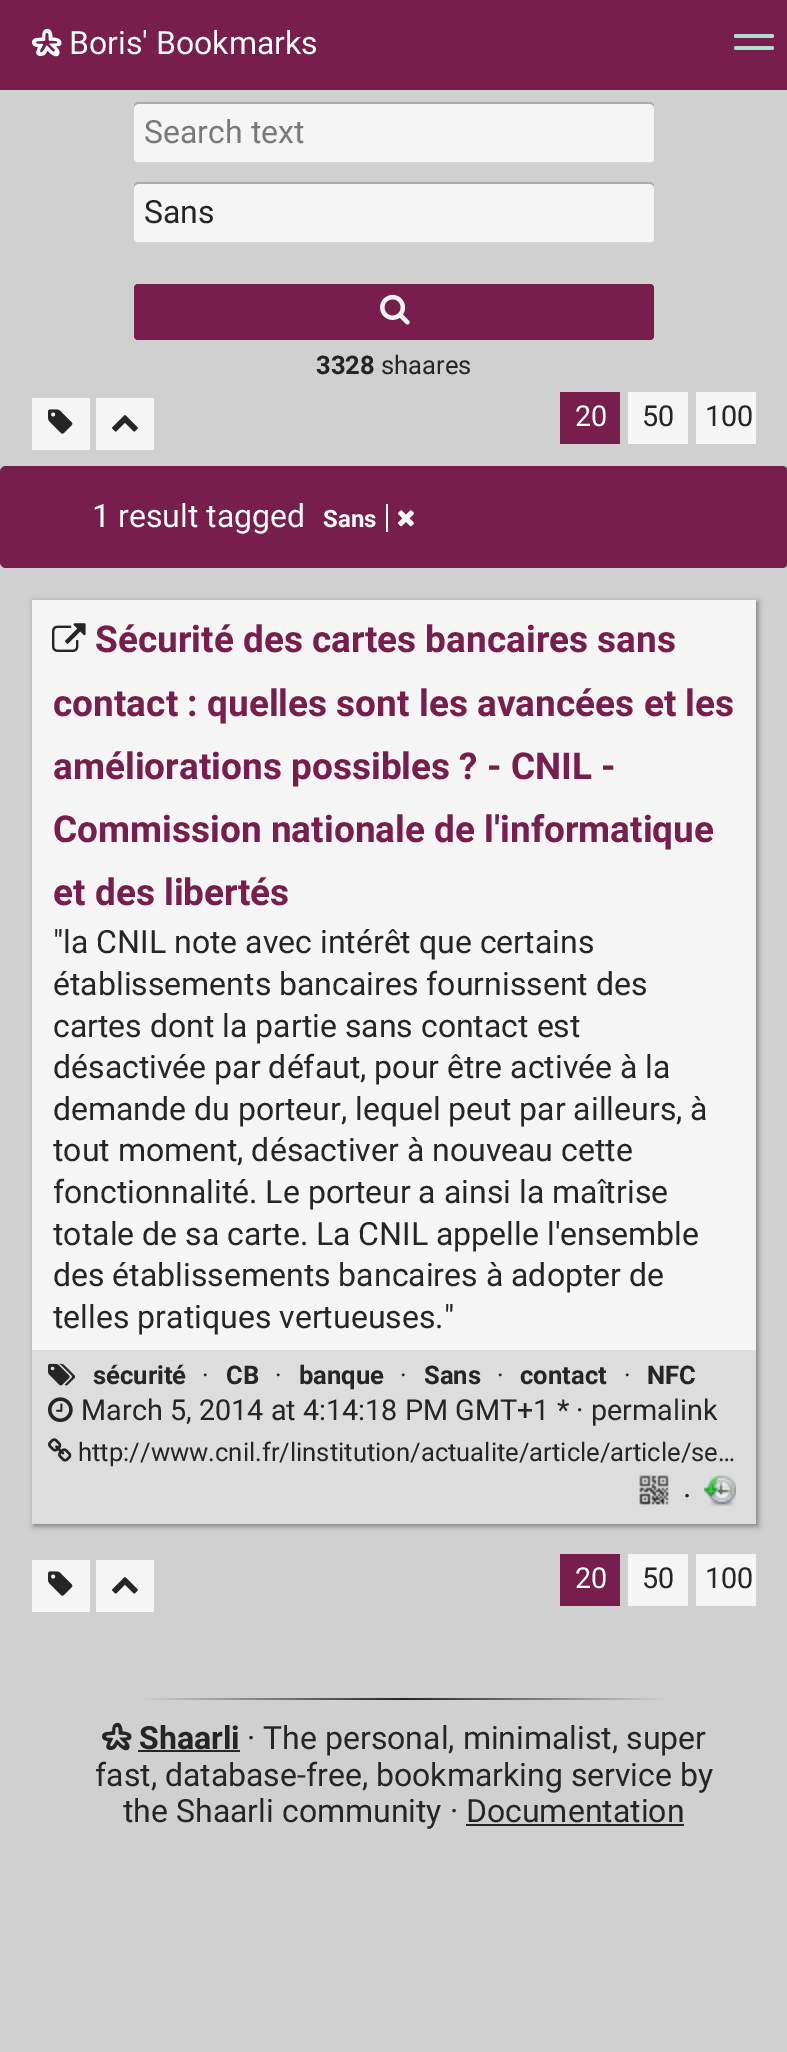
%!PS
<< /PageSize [787 2052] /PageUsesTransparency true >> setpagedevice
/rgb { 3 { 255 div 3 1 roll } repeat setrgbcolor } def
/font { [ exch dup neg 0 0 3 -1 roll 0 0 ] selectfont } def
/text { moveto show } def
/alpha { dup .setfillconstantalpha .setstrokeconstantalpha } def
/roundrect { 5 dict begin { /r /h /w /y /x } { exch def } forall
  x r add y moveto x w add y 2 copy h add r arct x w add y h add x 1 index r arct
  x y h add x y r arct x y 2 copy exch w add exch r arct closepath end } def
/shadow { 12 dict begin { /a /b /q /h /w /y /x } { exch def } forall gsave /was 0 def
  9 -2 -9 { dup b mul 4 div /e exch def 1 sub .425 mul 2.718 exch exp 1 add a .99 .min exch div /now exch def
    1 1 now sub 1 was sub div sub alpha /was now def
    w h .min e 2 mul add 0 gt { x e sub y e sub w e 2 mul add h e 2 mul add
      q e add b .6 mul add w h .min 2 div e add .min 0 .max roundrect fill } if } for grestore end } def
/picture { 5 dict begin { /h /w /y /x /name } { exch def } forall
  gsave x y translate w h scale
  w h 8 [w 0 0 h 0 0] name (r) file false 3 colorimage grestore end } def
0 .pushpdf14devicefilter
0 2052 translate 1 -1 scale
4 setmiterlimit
208 208 208 rgb
0 0 787 2052 rectfill
120 30 76 rgb
0 0 787 90 rectfill
(img_01.rgb) 32 28 30 29 picture
176 221 206 rgb
734 34 40 4 2 roundrect fill
734 46 40 4 2 roundrect fill
212 212 212 rgb
134 158 moveto 0 2 rlineto 0 2 2 4 4 4 rcurveto 512 0 rlineto 2 0 4 -2 4 -4 rcurveto 0 -2 rlineto 0 2 -2 4 -4 4 rcurveto -512 0 rlineto -2 0 -4 -2 -4 -4 rcurveto closepath fill
245 245 245 rgb
134 102 520 60 4 roundrect fill
0.3 alpha
0 0 0 rgb
138 104 moveto 512 0 rlineto 2 0 4 2 4 4 rcurveto 0 -2 rlineto 0 -2 -2 -4 -4 -4 rcurveto -512 0 rlineto -2 0 -4 2 -4 4 rcurveto 0 2 rlineto 0 -2 2 -4 4 -4 rcurveto closepath fill
1 alpha
212 212 212 rgb
134 238 moveto 0 2 rlineto 0 2 2 4 4 4 rcurveto 512 0 rlineto 2 0 4 -2 4 -4 rcurveto 0 -2 rlineto 0 2 -2 4 -4 4 rcurveto -512 0 rlineto -2 0 -4 -2 -4 -4 rcurveto closepath fill
245 245 245 rgb
134 182 520 60 4 roundrect fill
0.3 alpha
0 0 0 rgb
138 184 moveto 512 0 rlineto 2 0 4 2 4 4 rcurveto 0 -2 rlineto 0 -2 -2 -4 -4 -4 rcurveto -512 0 rlineto -2 0 -4 2 -4 4 rcurveto 0 2 rlineto 0 -2 2 -4 4 -4 rcurveto closepath fill
1 alpha
120 30 76 rgb
134 284 520 56 4 roundrect fill
(img_02.rgb) 380 294 30 31 picture
245 245 245 rgb
32 398 58 52 rectfill
(img_03.rgb) 48 409 25 25 picture
96 398 58 52 rectfill
(img_04.rgb) 112 415 26 17 picture
120 30 76 rgb
560 392 60 52 rectfill
245 245 245 rgb
628 392 60 52 rectfill
696 392 60 52 rectfill
120 30 76 rgb
0 466 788 102 6 roundrect fill
255 255 255 rgb
386 504 2 28 rectfill
(img_05.rgb) 398 510 16 17 picture
121 121 121 rgb
34 602 724 924 0 3 1 shadow
245 245 245 rgb
32 600 724 750 rectfill
(img_06.rgb) 52 623 34 29 picture
221 221 221 rgb
32 1350 724 174 rectfill
(img_07.rgb) 48 1363 28 23 picture
(img_08.rgb) 48 1397 25 26 picture
(img_09.rgb) 48 1438 24 24 picture
(img_10.rgb) 639 1475 30 30 picture
(img_11.rgb) 704 1475 32 31 picture
245 245 245 rgb
32 1560 58 52 rectfill
(img_03.rgb) 48 1571 25 25 picture
96 1560 58 52 rectfill
(img_04.rgb) 112 1577 26 17 picture
120 30 76 rgb
560 1554 60 52 rectfill
245 245 245 rgb
628 1554 60 52 rectfill
696 1554 60 52 rectfill
gsave 142 1698 moveto 524 0 rlineto 0 2 rlineto -524 0 rlineto closepath clip newpath
<< /ShadingType 2 /ColorSpace /DeviceRGB /Coords [142 1699 666 1699] /Extend [true true] /Function << /FunctionType 3 /Domain [0 1] /Functions [<< /FunctionType 2 /Domain [0 1] /C0 [0.816 0.816 0.816] /C1 [0.145 0.145 0.145] /N 1 >> << /FunctionType 2 /Domain [0 1] /C0 [0.145 0.145 0.145] /C1 [0.816 0.816 0.816] /N 1 >>] /Bounds [0.5] /Encode [0 1 0 1] >> >> shfill grestore
(img_12.rgb) 102 1722 30 29 picture
37 37 37 rgb
138 1750 102 2 rectfill
466 1824 218 2 rectfill
/Roboto-Regular 32 font
255 255 255 rgb
(Boris' Bookmarks) 69 54 text
121 121 121 rgb
(Search text) 144 143 text
37 37 37 rgb
(Sans) 144 223 text
/Roboto-Bold 25.6 font
(3328) 316 374 text
/Roboto-Regular 25.6 font
(shaares) 381 374 text
/Roboto-Regular 28.8 font
255 255 255 rgb
(20) 575 426 text
37 37 37 rgb
(50) 642 426 text
(100) 705 426 text
/Roboto-Regular 32 font
255 255 255 rgb
(1 result tagged) 92 527 text
/Roboto-Bold 24 font
(Sans) 323 527 text
/Roboto-Bold 37 font
120 30 76 rgb
(Sécurité des cartes bancaires sans) 95 652 text
(contact : quelles sont les avancées et les) 53 716 text
(améliorations possibles ? - CNIL -) 53 779 text
(Commission nationale de l'informatique) 53 842 text
(et des libertés) 53 905 text
/Roboto-Regular 32 font
37 37 37 rgb
("la CNIL note avec intérêt que certains) 53 953 text
(établissements bancaires fournissent des) 53 995 text
(cartes dont la partie sans contact est) 53 1037 text
(désactivée par défaut, pour être activée à la) 53 1078 text
(demande du porteur, lequel peut par ailleurs, à) 53 1120 text
(tout moment, désactiver à nouveau cette) 53 1161 text
(fonctionnalité. Le porteur a ainsi la maîtrise) 53 1203 text
(totale de sa carte. La CNIL appelle l'ensemble) 53 1245 text
(des établissements bancaires à adopter de) 53 1286 text
(telles pratiques vertueuses.") 53 1328 text
/Roboto-Bold 25.6 font
(sécurité) 93 1384 text
/Roboto-Regular 25.6 font
(·) 202 1384 text
/Roboto-Bold 25.6 font
(CB) 226 1384 text
/Roboto-Regular 25.6 font
(·) 275 1384 text
/Roboto-Bold 25.6 font
(banque) 299 1384 text
/Roboto-Regular 25.6 font
(·) 400 1384 text
/Roboto-Bold 25.6 font
(Sans) 424 1384 text
/Roboto-Regular 25.6 font
(·) 497 1384 text
/Roboto-Bold 25.6 font
(contact) 520 1384 text
/Roboto-Regular 25.6 font
(·) 624 1384 text
/Roboto-Bold 25.6 font
(NFC) 647 1384 text
/Roboto-Regular 28.8 font
(March 5, 2014 at 4:14:18 PM GMT+1 * · permalink) 81 1420 text
/Roboto-Regular 25.6 font
(http://www.cnil.fr/linstitution/actualite/article/article/se…) 78 1461 text
/Roboto-Regular 32 font
(·) 683 1507 text
/Roboto-Regular 28.8 font
255 255 255 rgb
(20) 575 1588 text
37 37 37 rgb
(50) 642 1588 text
(100) 705 1588 text
/Roboto-Bold 32 font
(Shaarli) 139 1749 text
/Roboto-Regular 32 font
(· The personal, minimalist, super) 247 1749 text
(fast, database-free, bookmarking service by) 95 1786 text
(the Shaarli community · Documentation) 123 1822 text
.poppdf14devicefilter showpage
